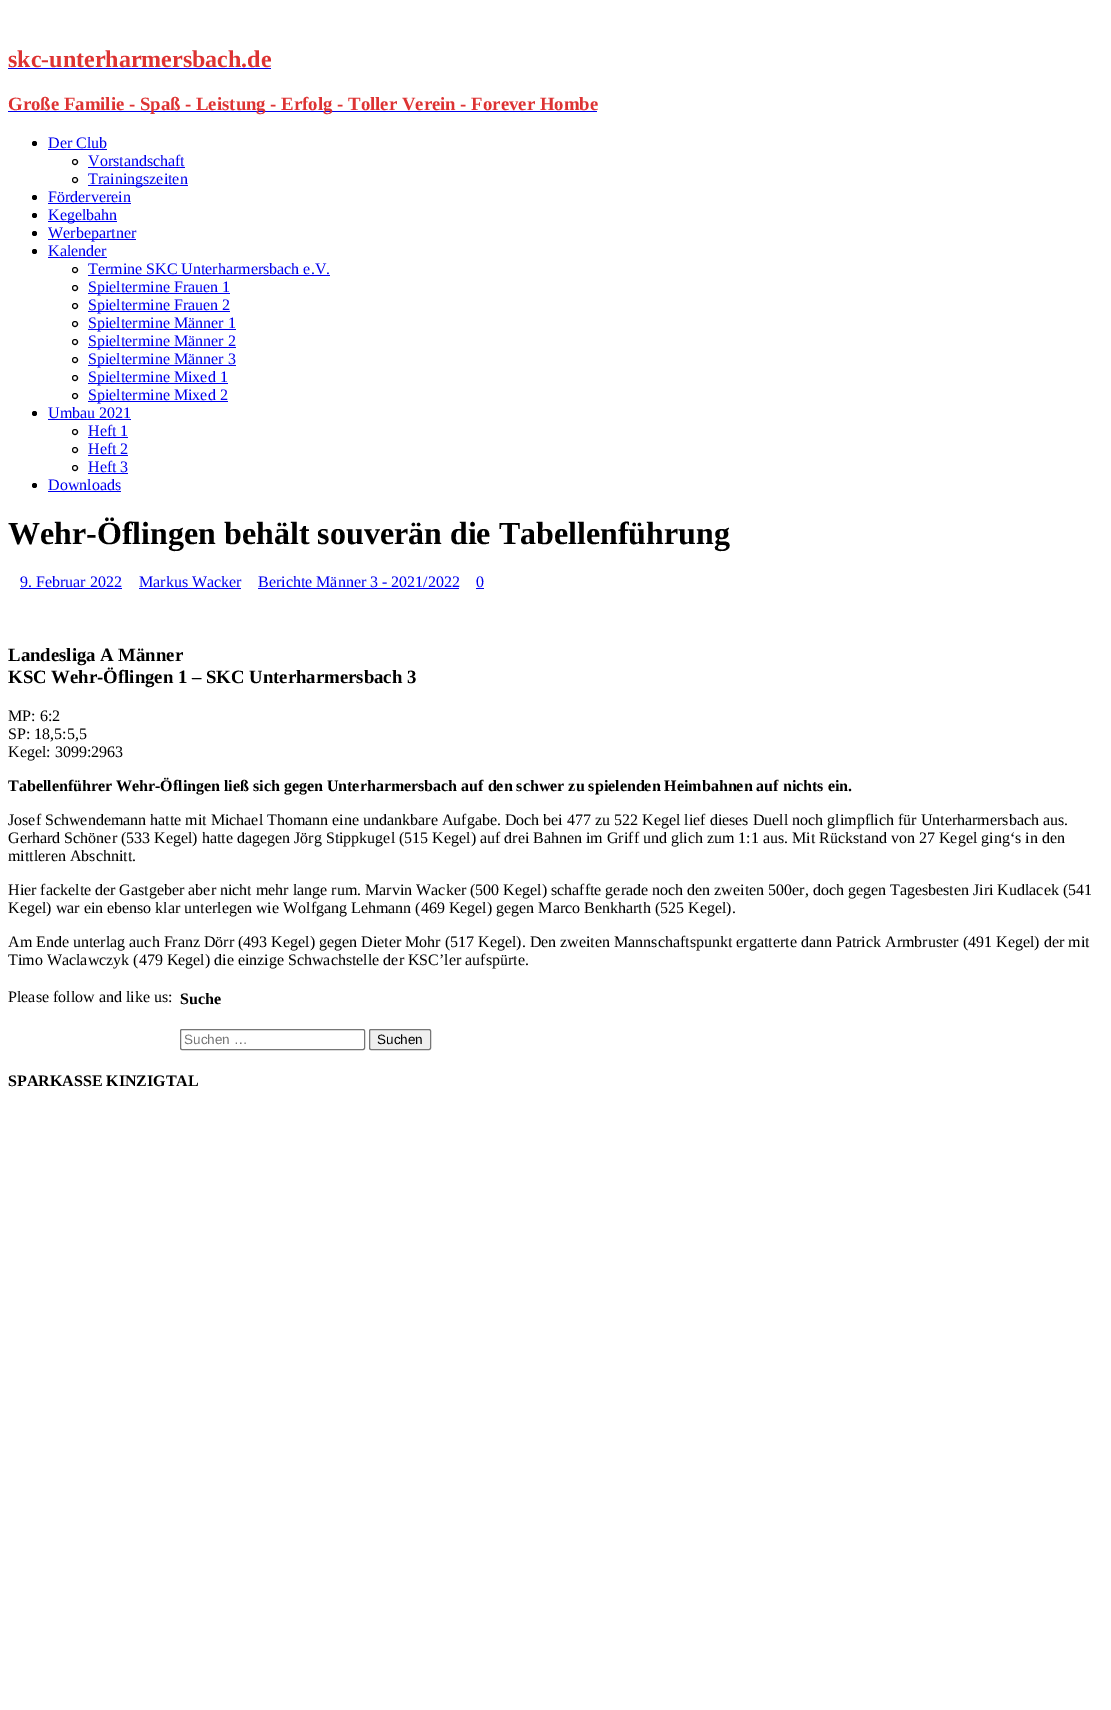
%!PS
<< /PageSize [1111 1710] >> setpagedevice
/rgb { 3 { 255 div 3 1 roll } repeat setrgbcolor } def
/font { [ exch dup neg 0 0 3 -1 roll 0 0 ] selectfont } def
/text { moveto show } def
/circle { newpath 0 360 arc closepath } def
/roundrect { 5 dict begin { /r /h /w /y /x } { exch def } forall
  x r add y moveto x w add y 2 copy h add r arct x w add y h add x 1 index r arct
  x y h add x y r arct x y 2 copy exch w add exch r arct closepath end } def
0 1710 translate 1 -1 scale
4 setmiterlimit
255 255 255 rgb
0 0 1111 1710 rectfill
0 0 238 rgb
8 68 263 1 rectfill
8 111 589 1 rectfill
0 0 0 rgb
34.5 143.5 2.5 circle fill
0 0 238 rgb
48 149 59 1 rectfill
0 0 0 rgb
75 162 2.5 circle stroke
0 0 238 rgb
88 167 97 1 rectfill
0 0 0 rgb
75 180 2.5 circle stroke
0 0 238 rgb
88 185 100 1 rectfill
0 0 0 rgb
34.5 197.5 2.5 circle fill
0 0 238 rgb
48 203 83 1 rectfill
0 0 0 rgb
34.5 215.5 2.5 circle fill
0 0 238 rgb
48 221 69 1 rectfill
0 0 0 rgb
34.5 233.5 2.5 circle fill
0 0 238 rgb
48 239 88 1 rectfill
0 0 0 rgb
34.5 251.5 2.5 circle fill
0 0 238 rgb
48 257 59 1 rectfill
0 0 0 rgb
75 270 2.5 circle stroke
0 0 238 rgb
88 275 242 1 rectfill
0 0 0 rgb
75 288 2.5 circle stroke
0 0 238 rgb
88 293 142 1 rectfill
0 0 0 rgb
75 306 2.5 circle stroke
0 0 238 rgb
88 311 142 1 rectfill
0 0 0 rgb
75 324 2.5 circle stroke
0 0 238 rgb
88 329 148 1 rectfill
0 0 0 rgb
75 342 2.5 circle stroke
0 0 238 rgb
88 347 148 1 rectfill
0 0 0 rgb
75 360 2.5 circle stroke
0 0 238 rgb
88 365 148 1 rectfill
0 0 0 rgb
75 378 2.5 circle stroke
0 0 238 rgb
88 383 140 1 rectfill
0 0 0 rgb
75 396 2.5 circle stroke
0 0 238 rgb
88 401 140 1 rectfill
0 0 0 rgb
34.5 413.5 2.5 circle fill
0 0 238 rgb
48 419 83 1 rectfill
0 0 0 rgb
75 432 2.5 circle stroke
0 0 238 rgb
88 437 40 1 rectfill
0 0 0 rgb
75 450 2.5 circle stroke
0 0 238 rgb
88 455 40 1 rectfill
0 0 0 rgb
75 468 2.5 circle stroke
0 0 238 rgb
88 473 40 1 rectfill
0 0 0 rgb
34.5 485.5 2.5 circle fill
0 0 238 rgb
48 491 73 1 rectfill
20 588 102 1 rectfill
139 588 102 1 rectfill
258 588 201 1 rectfill
476 588 8 1 rectfill
118 118 118 rgb
180.5 1029.5 184 20 1.5 roundrect stroke
239 239 239 rgb
369.5 1029.5 61 20 1.5 roundrect gsave fill grestore
118 118 118 rgb
stroke
/LiberationSerif-Bold 24 font
221 51 51 rgb
(skc-unterharmersbach.de) 8 67 text
/LiberationSerif-Bold 18.75 font
(Große Familie - Spaß - Leistung - Erfolg - Toller Verein - Forever Hombe) 8 110 text
/LiberationSerif-Regular 16 font
0 0 238 rgb
(Der Club) 48 148 text
(Vorstandschaft) 88 166 text
(Trainingszeiten) 88 184 text
(Förderverein) 48 202 text
(Kegelbahn) 48 220 text
(Werbepartner) 48 238 text
(Kalender) 48 256 text
(Termine SKC Unterharmersbach e.V.) 88 274 text
(Spieltermine Frauen 1) 88 292 text
(Spieltermine Frauen 2) 88 310 text
(Spieltermine Männer 1) 88 328 text
(Spieltermine Männer 2) 88 346 text
(Spieltermine Männer 3) 88 364 text
(Spieltermine Mixed 1) 88 382 text
(Spieltermine Mixed 2) 88 400 text
(Umbau 2021) 48 418 text
(Heft 1) 88 436 text
(Heft 2) 88 454 text
(Heft 3) 88 472 text
(Downloads) 48 490 text
/LiberationSerif-Bold 32 font
0 0 0 rgb
(Wehr-Öflingen behält souverän die Tabellenführung) 8 544 text
/LiberationSerif-Regular 16 font
0 0 238 rgb
(9. Februar 2022) 20 587 text
(Markus Wacker) 139 587 text
(Berichte Männer 3 - 2021/2022) 258 587 text
(0) 476 587 text
/LiberationSerif-Bold 18.75 font
0 0 0 rgb
(Landesliga A Männer) 8 661 text
(KSC Wehr-Öflingen 1 – SKC Unterharmersbach 3) 8 683 text
/LiberationSerif-Regular 16 font
(MP: 6:2) 8 721 text
(SP: 18,5:5,5) 8 739 text
(Kegel: 3099:2963) 8 757 text
/LiberationSerif-Bold 16 font
(Tabellenführer Wehr-Öflingen ließ sich gegen Unterharmersbach auf den schwer zu spielenden Heimbahnen auf nichts ein.) 8 791 text
/LiberationSerif-Regular 16 font
(Josef Schwendemann hatte mit Michael Thomann eine undankbare Aufgabe. Doch bei 477 zu 522 Kegel lief dieses Duell noch glimpflich für Unterharmersbach aus.) 8 825 text
(Gerhard Schöner \(533 Kegel\) hatte dagegen Jörg Stippkugel \(515 Kegel\) auf drei Bahnen im Griff und glich zum 1:1 aus. Mit Rückstand von 27 Kegel ging‘s in den) 8 843 text
(mittleren Abschnitt.) 8 861 text
(Hier fackelte der Gastgeber aber nicht mehr lange rum. Marvin Wacker \(500 Kegel\) schaffte gerade noch den zweiten 500er, doch gegen Tagesbesten Jiri Kudlacek \(541) 8 895 text
(Kegel\) war ein ebenso klar unterlegen wie Wolfgang Lehmann \(469 Kegel\) gegen Marco Benkharth \(525 Kegel\).) 8 913 text
(Am Ende unterlag auch Franz Dörr \(493 Kegel\) gegen Dieter Mohr \(517 Kegel\). Den zweiten Mannschaftspunkt ergatterte dann Patrick Armbruster \(491 Kegel\) der mit) 8 947 text
(Timo Waclawczyk \(479 Kegel\) die einzige Schwachstelle der KSC’ler aufspürte.) 8 965 text
(Please follow and like us:) 8 1002 text
/LiberationSerif-Bold 16 font
(Suche) 180 1004 text
/LiberationSans-Regular 13.5 font
117 117 117 rgb
(Suchen …) 184 1044 text
0 0 0 rgb
(Suchen) 377 1044 text
/LiberationSerif-Bold 16 font
(SPARKASSE KINZIGTAL) 8 1086 text
showpage
